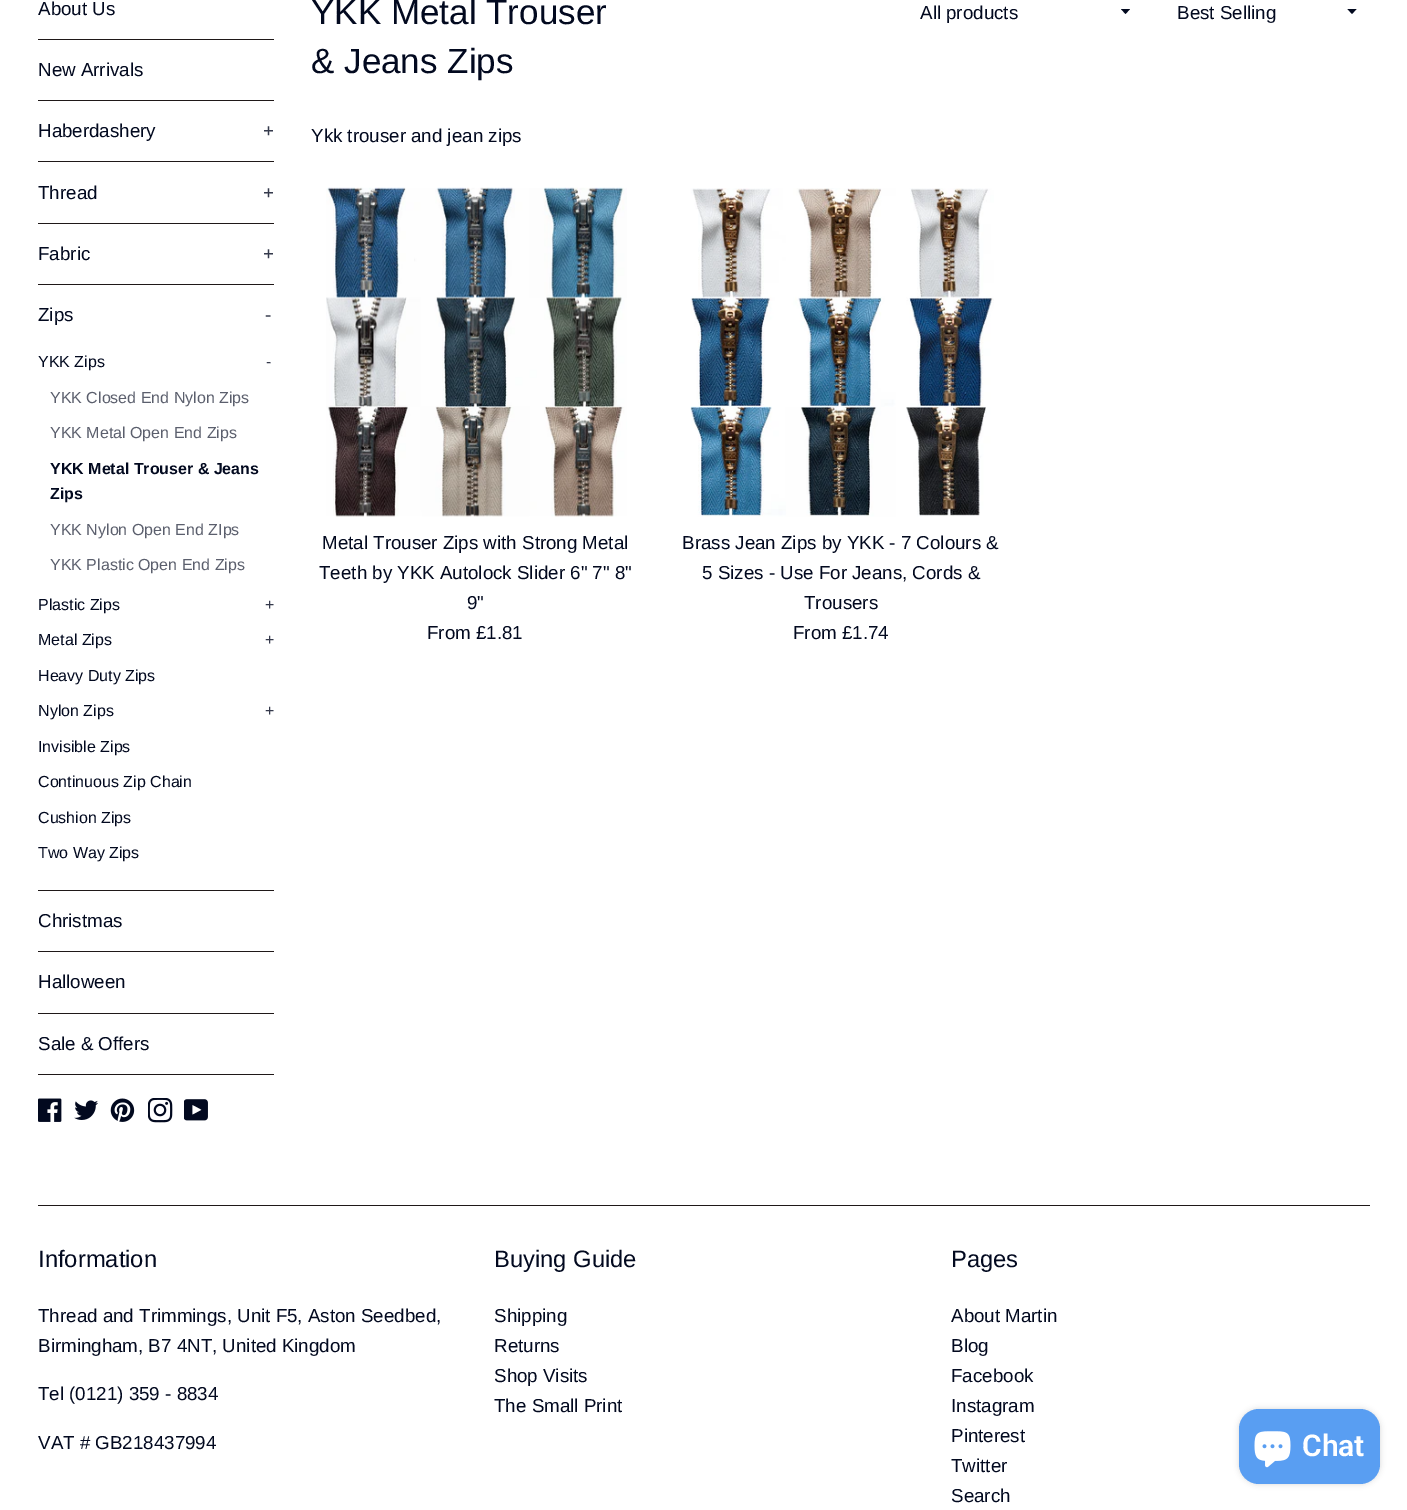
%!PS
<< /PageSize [1407 1510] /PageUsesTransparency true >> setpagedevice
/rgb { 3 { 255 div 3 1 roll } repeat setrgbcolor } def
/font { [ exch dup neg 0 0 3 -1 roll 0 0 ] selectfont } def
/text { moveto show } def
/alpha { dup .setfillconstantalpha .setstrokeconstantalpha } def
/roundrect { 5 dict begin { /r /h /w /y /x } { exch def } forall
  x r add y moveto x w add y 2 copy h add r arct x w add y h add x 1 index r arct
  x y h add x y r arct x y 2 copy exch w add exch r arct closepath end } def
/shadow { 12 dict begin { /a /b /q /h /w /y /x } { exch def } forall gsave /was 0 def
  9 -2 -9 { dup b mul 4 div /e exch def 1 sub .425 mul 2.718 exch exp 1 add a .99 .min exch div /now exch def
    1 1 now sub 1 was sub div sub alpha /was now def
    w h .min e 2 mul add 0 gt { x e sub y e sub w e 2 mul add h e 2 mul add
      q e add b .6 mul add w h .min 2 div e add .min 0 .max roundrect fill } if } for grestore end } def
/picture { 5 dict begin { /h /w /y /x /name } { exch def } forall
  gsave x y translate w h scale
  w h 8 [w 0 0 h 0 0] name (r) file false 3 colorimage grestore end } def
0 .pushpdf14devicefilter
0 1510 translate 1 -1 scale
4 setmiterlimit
255 255 255 rgb
0 0 1407 1510 rectfill
31 24 24 rgb
38 39 236 1 rectfill
38 100 236 1 rectfill
38 161 236 1 rectfill
38 223 236 1 rectfill
38 284 236 1 rectfill
38 890 236 1 rectfill
38 951 236 1 rectfill
38 1013 236 1 rectfill
38 1074 236 1 rectfill
(img_01.rgb) 38 1098 24 24 picture
(img_02.rgb) 74 1100 24 20 picture
(img_03.rgb) 110 1098 25 24 picture
(img_04.rgb) 148 1098 25 25 picture
(img_05.rgb) 184 1099 24 22 picture
2 9 31 rgb
1121 9 moveto 4.5 5 rlineto 4.5 -5 rlineto closepath fill
1347.5 9 moveto 4.5 5 rlineto 4.5 -5 rlineto closepath fill
(img_06.rgb) 326 187 301 330 picture
(img_07.rgb) 690 188 304 329 picture
31 24 24 rgb
38 1205 1332 1 rectfill
0 0 0 rgb
1239 1409 141 75 20 3 0.15 shadow
89 158 242 rgb
1239 1409 141 75 20 roundrect fill
(img_08.rgb) 1254 1431 37 37 picture
/LiberationSans-Regular 18.75 font
2 9 31 rgb
(About Us) 38 15 text
(New Arrivals) 38 76 text
(Haberdashery) 38 137 text
53 58 76 rgb
(+) 263 137 text
2 9 31 rgb
(Thread) 38 199 text
53 58 76 rgb
(+) 263 199 text
2 9 31 rgb
(Fabric) 38 260 text
53 58 76 rgb
(+) 263 260 text
2 9 31 rgb
(Zips) 38 321 text
53 58 76 rgb
(-) 265 321 text
/LiberationSans-Regular 16 font
2 9 31 rgb
(YKK Zips) 38 367 text
53 58 76 rgb
(-) 266 367 text
91 95 109 rgb
(YKK Closed End Nylon Zips) 50 403 text
(YKK Metal Open End Zips) 50 438 text
/LiberationSans-Bold 16 font
2 9 31 rgb
(YKK Metal Trouser & Jeans) 50 474 text
(Zips) 50 499 text
/LiberationSans-Regular 16 font
91 95 109 rgb
(YKK Nylon Open End ZIps) 50 535 text
(YKK Plastic Open End Zips) 50 570 text
2 9 31 rgb
(Plastic Zips) 38 610 text
53 58 76 rgb
(+) 265 610 text
2 9 31 rgb
(Metal Zips) 38 645 text
53 58 76 rgb
(+) 265 645 text
2 9 31 rgb
(Heavy Duty Zips) 38 681 text
(Nylon Zips) 38 716 text
53 58 76 rgb
(+) 265 716 text
2 9 31 rgb
(Invisible Zips) 38 752 text
(Continuous Zip Chain) 38 787 text
(Cushion Zips) 38 823 text
(Two Way Zips) 38 858 text
/LiberationSans-Regular 18.75 font
(Christmas) 38 927 text
(Halloween) 38 988 text
(Sale & Offers) 38 1050 text
/LiberationSans-Regular 35 font
(YKK Metal Trouser) 311 24 text
(& Jeans Zips) 311 73 text
/LiberationSans-Regular 18.75 font
(All products) 920 19 text
(Best Selling) 1177 19 text
(Ykk trouser and jean zips) 311 142 text
(Metal Trouser Zips with Strong Metal) 322 549 text
(Teeth by YKK Autolock Slider 6" 7" 8") 319 579 text
(9") 467 609 text
(From £1.81) 427 639 text
(Brass Jean Zips by YKK - 7 Colours &) 682 549 text
(5 Sizes - Use For Jeans, Cords &) 702 579 text
(Trousers) 804 609 text
(From £1.74) 793 639 text
/LiberationSans-Regular 23.75 font
(Information) 38 1267 text
/LiberationSans-Regular 18.75 font
(Thread and Trimmings, Unit F5, Aston Seedbed,) 38 1322 text
(Birmingham, B7 4NT, United Kingdom) 38 1352 text
(Tel \(0121\) 359 - 8834) 38 1400 text
(VAT # GB218437994) 38 1449 text
/LiberationSans-Regular 23.75 font
(Buying Guide) 494 1267 text
/LiberationSans-Regular 18.75 font
(Shipping) 494 1322 text
(Returns) 494 1352 text
(Shop Visits) 494 1382 text
(The Small Print) 494 1412 text
/LiberationSans-Regular 23.75 font
(Pages) 951 1267 text
/LiberationSans-Regular 18.75 font
(About Martin) 951 1322 text
(Blog) 951 1352 text
(Facebook) 951 1382 text
(Instagram) 951 1412 text
(Pinterest) 951 1442 text
(Twitter) 951 1472 text
(Search) 951 1502 text
/Roboto-SemiBold 30 font
255 255 255 rgb
(Chat) 1302 1456 text
.poppdf14devicefilter showpage
